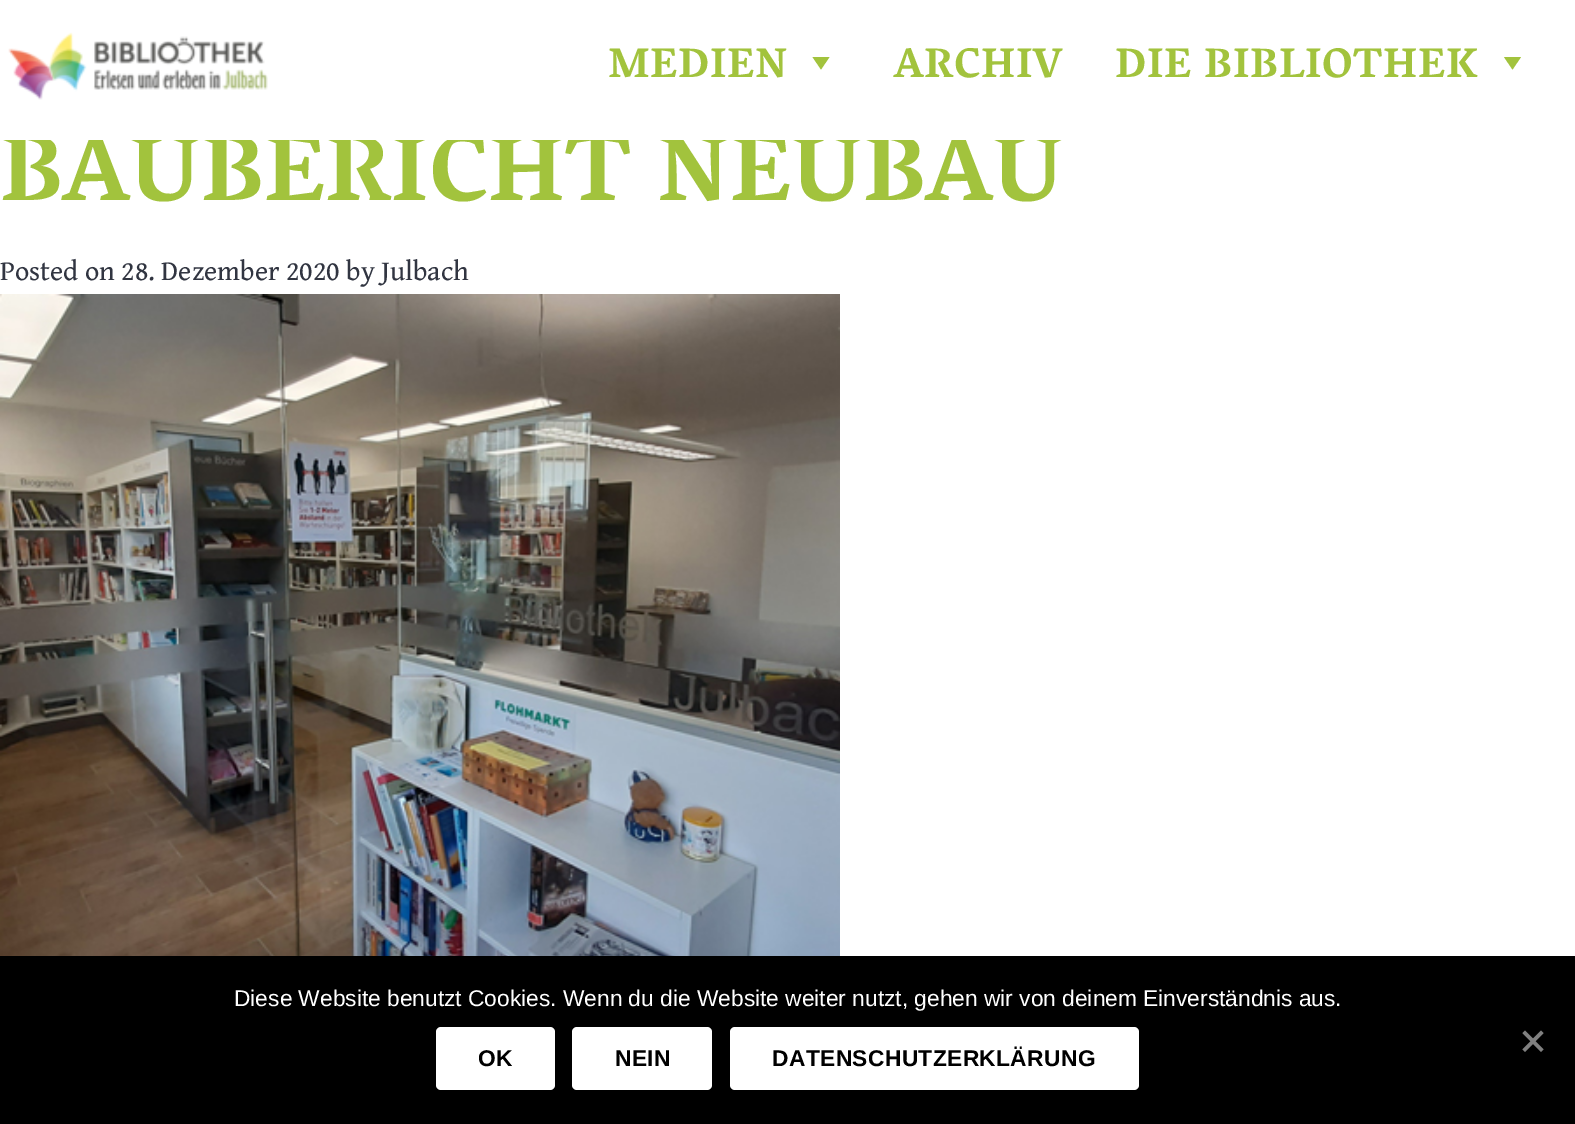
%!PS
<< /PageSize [1575 1124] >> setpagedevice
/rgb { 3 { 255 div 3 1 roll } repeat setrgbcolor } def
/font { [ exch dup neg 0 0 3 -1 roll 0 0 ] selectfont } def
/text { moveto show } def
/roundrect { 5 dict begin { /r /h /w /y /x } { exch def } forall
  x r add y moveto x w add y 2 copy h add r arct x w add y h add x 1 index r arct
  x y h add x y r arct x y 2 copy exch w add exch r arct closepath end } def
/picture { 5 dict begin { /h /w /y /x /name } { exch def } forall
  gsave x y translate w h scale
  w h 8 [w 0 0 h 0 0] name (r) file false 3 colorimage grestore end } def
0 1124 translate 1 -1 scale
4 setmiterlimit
255 255 255 rgb
0 0 1575 1124 rectfill
(img_01.rgb) 8 32 260 68 picture
162 195 61 rgb
829.5 57 moveto -8.5 12.5 rlineto -8.5 -12.5 rlineto closepath fill
1521 57 moveto -8.5 12.5 rlineto -8.5 -12.5 rlineto closepath fill
(img_02.rgb) 0 294 840 662 picture
0 0 0 rgb
0 956 1575 168 rectfill
128 128 128 rgb
1541 1030.5 moveto 2.5 2.5 rlineto -18.5 19 rlineto -2.5 -2.5 rlineto closepath fill
1522.5 1033 moveto 2.5 -2.5 rlineto 18.5 19 rlineto -2.5 2.5 rlineto closepath fill
255 255 255 rgb
436 1027 119 63 5 roundrect fill
572 1027 140 63 5 roundrect fill
730 1027 409 63 5 roundrect fill
/VesperLibre-Bold 42 font
162 195 61 rgb
608 77 moveto 0.6 0 (MEDIEN) ashow
894 77 moveto 0.6 0 (ARCHIV) ashow
1115 77 moveto 0.6 0 (DIE BIBLIOTHEK) ashow
/VesperLibre-Bold 94.5 font
(BAUBERICHT NEUBAU) 0 200 text
255 255 255 rgb
3 134 1059 6 rectfill
/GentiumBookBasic-Regular 28 font
49 53 65 rgb
(Posted on 28. Dezember 2020 by Julbach) 0 280 text
/LiberationSans-Regular 22.75 font
255 255 255 rgb
(Diese Website benutzt Cookies. Wenn du die Website weiter nutzt, gehen wir von deinem Einverständnis aus.) 234 1006 text
/LiberationSans-Bold 22.75 font
0 0 0 rgb
478 1066 moveto 0.4 0 (OK) ashow
615 1066 moveto 0.4 0 (NEIN) ashow
772 1066 moveto 0.4 0 (DATENSCHUTZERKLÄRUNG) ashow
showpage
